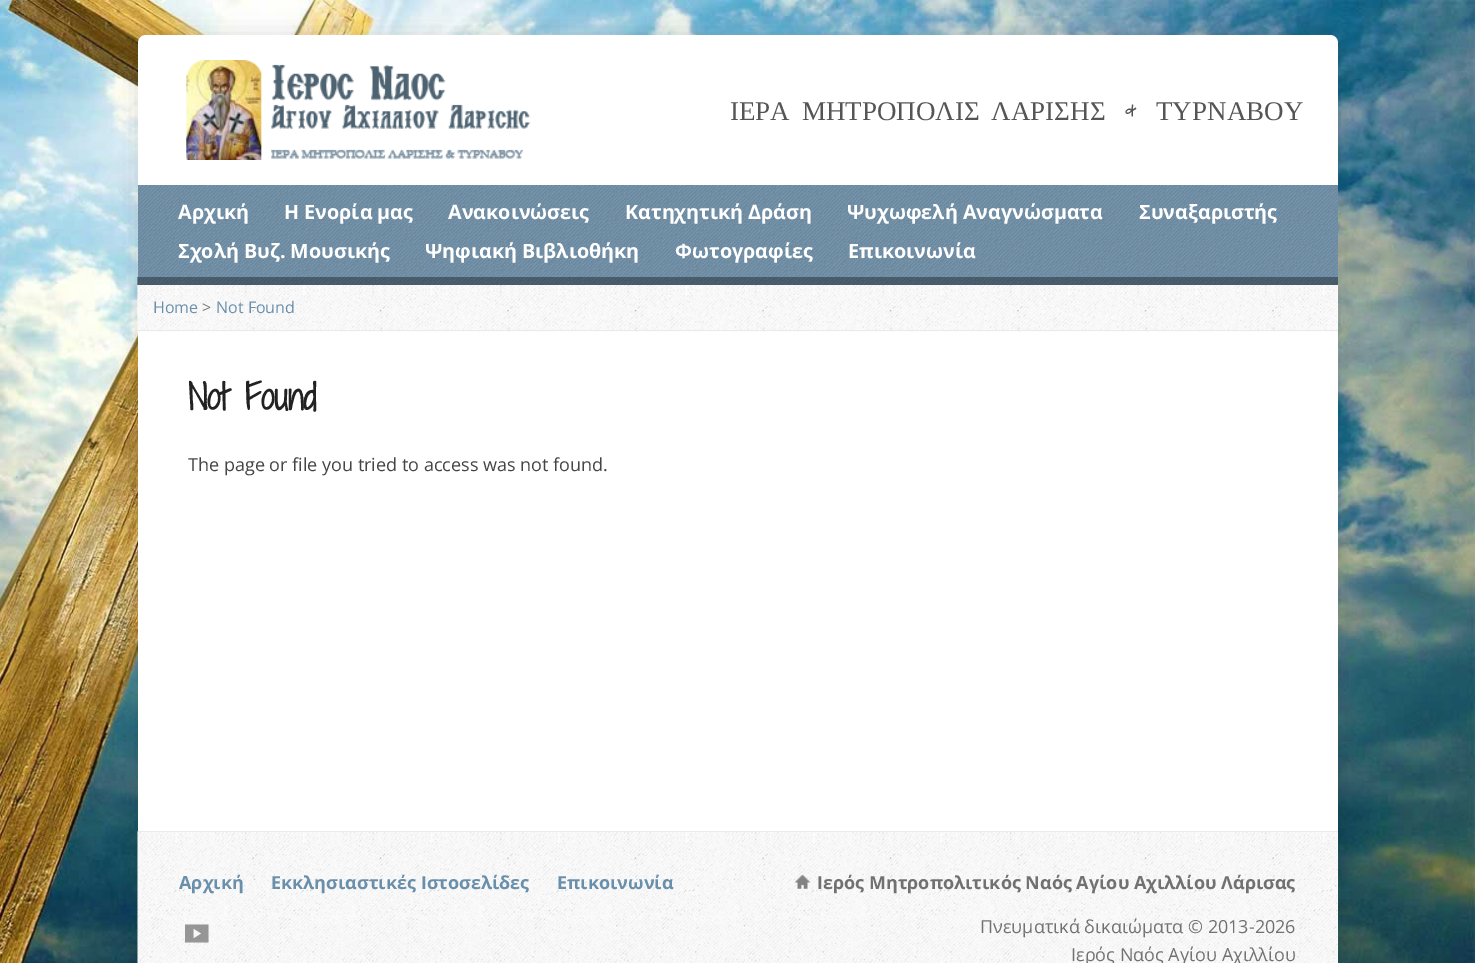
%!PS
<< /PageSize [1475 963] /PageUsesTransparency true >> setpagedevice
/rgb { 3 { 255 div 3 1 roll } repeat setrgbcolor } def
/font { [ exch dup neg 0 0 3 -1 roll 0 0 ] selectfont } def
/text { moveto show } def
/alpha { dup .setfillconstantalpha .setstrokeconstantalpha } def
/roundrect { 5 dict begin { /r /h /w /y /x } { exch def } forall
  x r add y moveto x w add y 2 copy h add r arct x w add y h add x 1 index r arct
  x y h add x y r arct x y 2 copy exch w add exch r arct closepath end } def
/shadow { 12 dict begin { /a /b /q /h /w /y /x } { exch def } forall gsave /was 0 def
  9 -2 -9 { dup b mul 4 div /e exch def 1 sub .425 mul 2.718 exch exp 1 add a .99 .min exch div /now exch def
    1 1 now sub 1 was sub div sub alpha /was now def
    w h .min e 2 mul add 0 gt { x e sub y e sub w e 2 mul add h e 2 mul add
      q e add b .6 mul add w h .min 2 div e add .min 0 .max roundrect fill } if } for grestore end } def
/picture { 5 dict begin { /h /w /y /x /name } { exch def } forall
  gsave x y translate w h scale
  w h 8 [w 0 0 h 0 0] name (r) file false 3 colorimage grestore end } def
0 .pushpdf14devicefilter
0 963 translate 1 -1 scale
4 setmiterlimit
255 255 255 rgb
0 0 1475 963 rectfill
(img_01.rgb) 0 0 1475 963 picture
0 0 0 rgb
138 35 1200 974 8 12.5 0.12 shadow
255 255 255 rgb
138 35 1200 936 8 roundrect fill
(img_02.rgb) 186 60 345 100 picture
106 143 171 rgb
138 185 1200 100 rectfill
(img_03.rgb) 137 185 1201 100 picture
0.35 alpha
0 0 0 rgb
137 277 1201 8 rectfill
1 alpha
(img_04.rgb) 137 285 1201 47 picture
234 234 234 rgb
138 330 1200 1 rectfill
(img_05.rgb) 137 831 1201 132 picture
138 831 1200 1 rectfill
0.6 alpha
85 85 85 rgb
208.5 942.5 moveto -23.5 0 rlineto 0 -18 rlineto 23.5 0 rlineto closepath 193.5 938.5 moveto 8 -5 rlineto -8 -5 rlineto closepath fill
1 alpha
(img_06.rgb) 795 874 16 15 picture
/LiberationSerif-Regular 27 font
730 120 moveto 5 0 32 (ΙΕΡΑ ΜΗΤΡΟΠΟΛΙΣ ΛΑΡΙΣΗΣ) widthshow
/ShadowsIntoLightTwo-Light 27 font
(&) 1124 120 text
/LiberationSerif-Regular 27 font
(ΤΥΡΝΑΒΟΥ) 1156 120 text
/OpenSans-Bold 19.75 font
255 255 255 rgb
(Αρχική) 178 219 text
(Η Ενορία μας) 284 219 text
(Ανακοινώσεις) 448 219 text
(Κατηχητική Δράση) 625 219 text
(Ψυχωφελή Αναγνώσματα) 847 219 text
(Συναξαριστής) 1139 219 text
(Σχολή Βυζ. Μουσικής) 178 258 text
(Ψηφιακή Βιβλιοθήκη) 425 258 text
(Φωτογραφίες) 675 258 text
(Επικοινωνία) 848 258 text
/OpenSans-Regular 16 font
106 143 171 rgb
(Home) 153 313 text
119 119 119 rgb
(>) 202 313 text
106 143 171 rgb
(Not Found) 216 313 text
/ShadowsIntoLightTwo-Bold 34 font
34 34 34 rgb
(Not Found) 188 410 text
/OpenSans-Regular 18 font
68 68 68 rgb
(The page or file you tried to access was not found.) 188 471 text
/OpenSans-Bold 18 font
106 143 171 rgb
(Αρχική) 179 889 text
(Εκκλησιαστικές Ιστοσελίδες) 271 889 text
(Επικοινωνία) 557 889 text
113 113 113 rgb
(Ιερός Μητροπολιτικός Ναός Αγίου Αχιλλίου Λάρισας) 817 889 text
/OpenSans-Regular 18 font
(Πνευματικά δικαιώματα © 2013-2026) 980 933 text
(Ιερός Ναός Αγίου Αχιλλίου) 1071 961 text
.poppdf14devicefilter showpage
